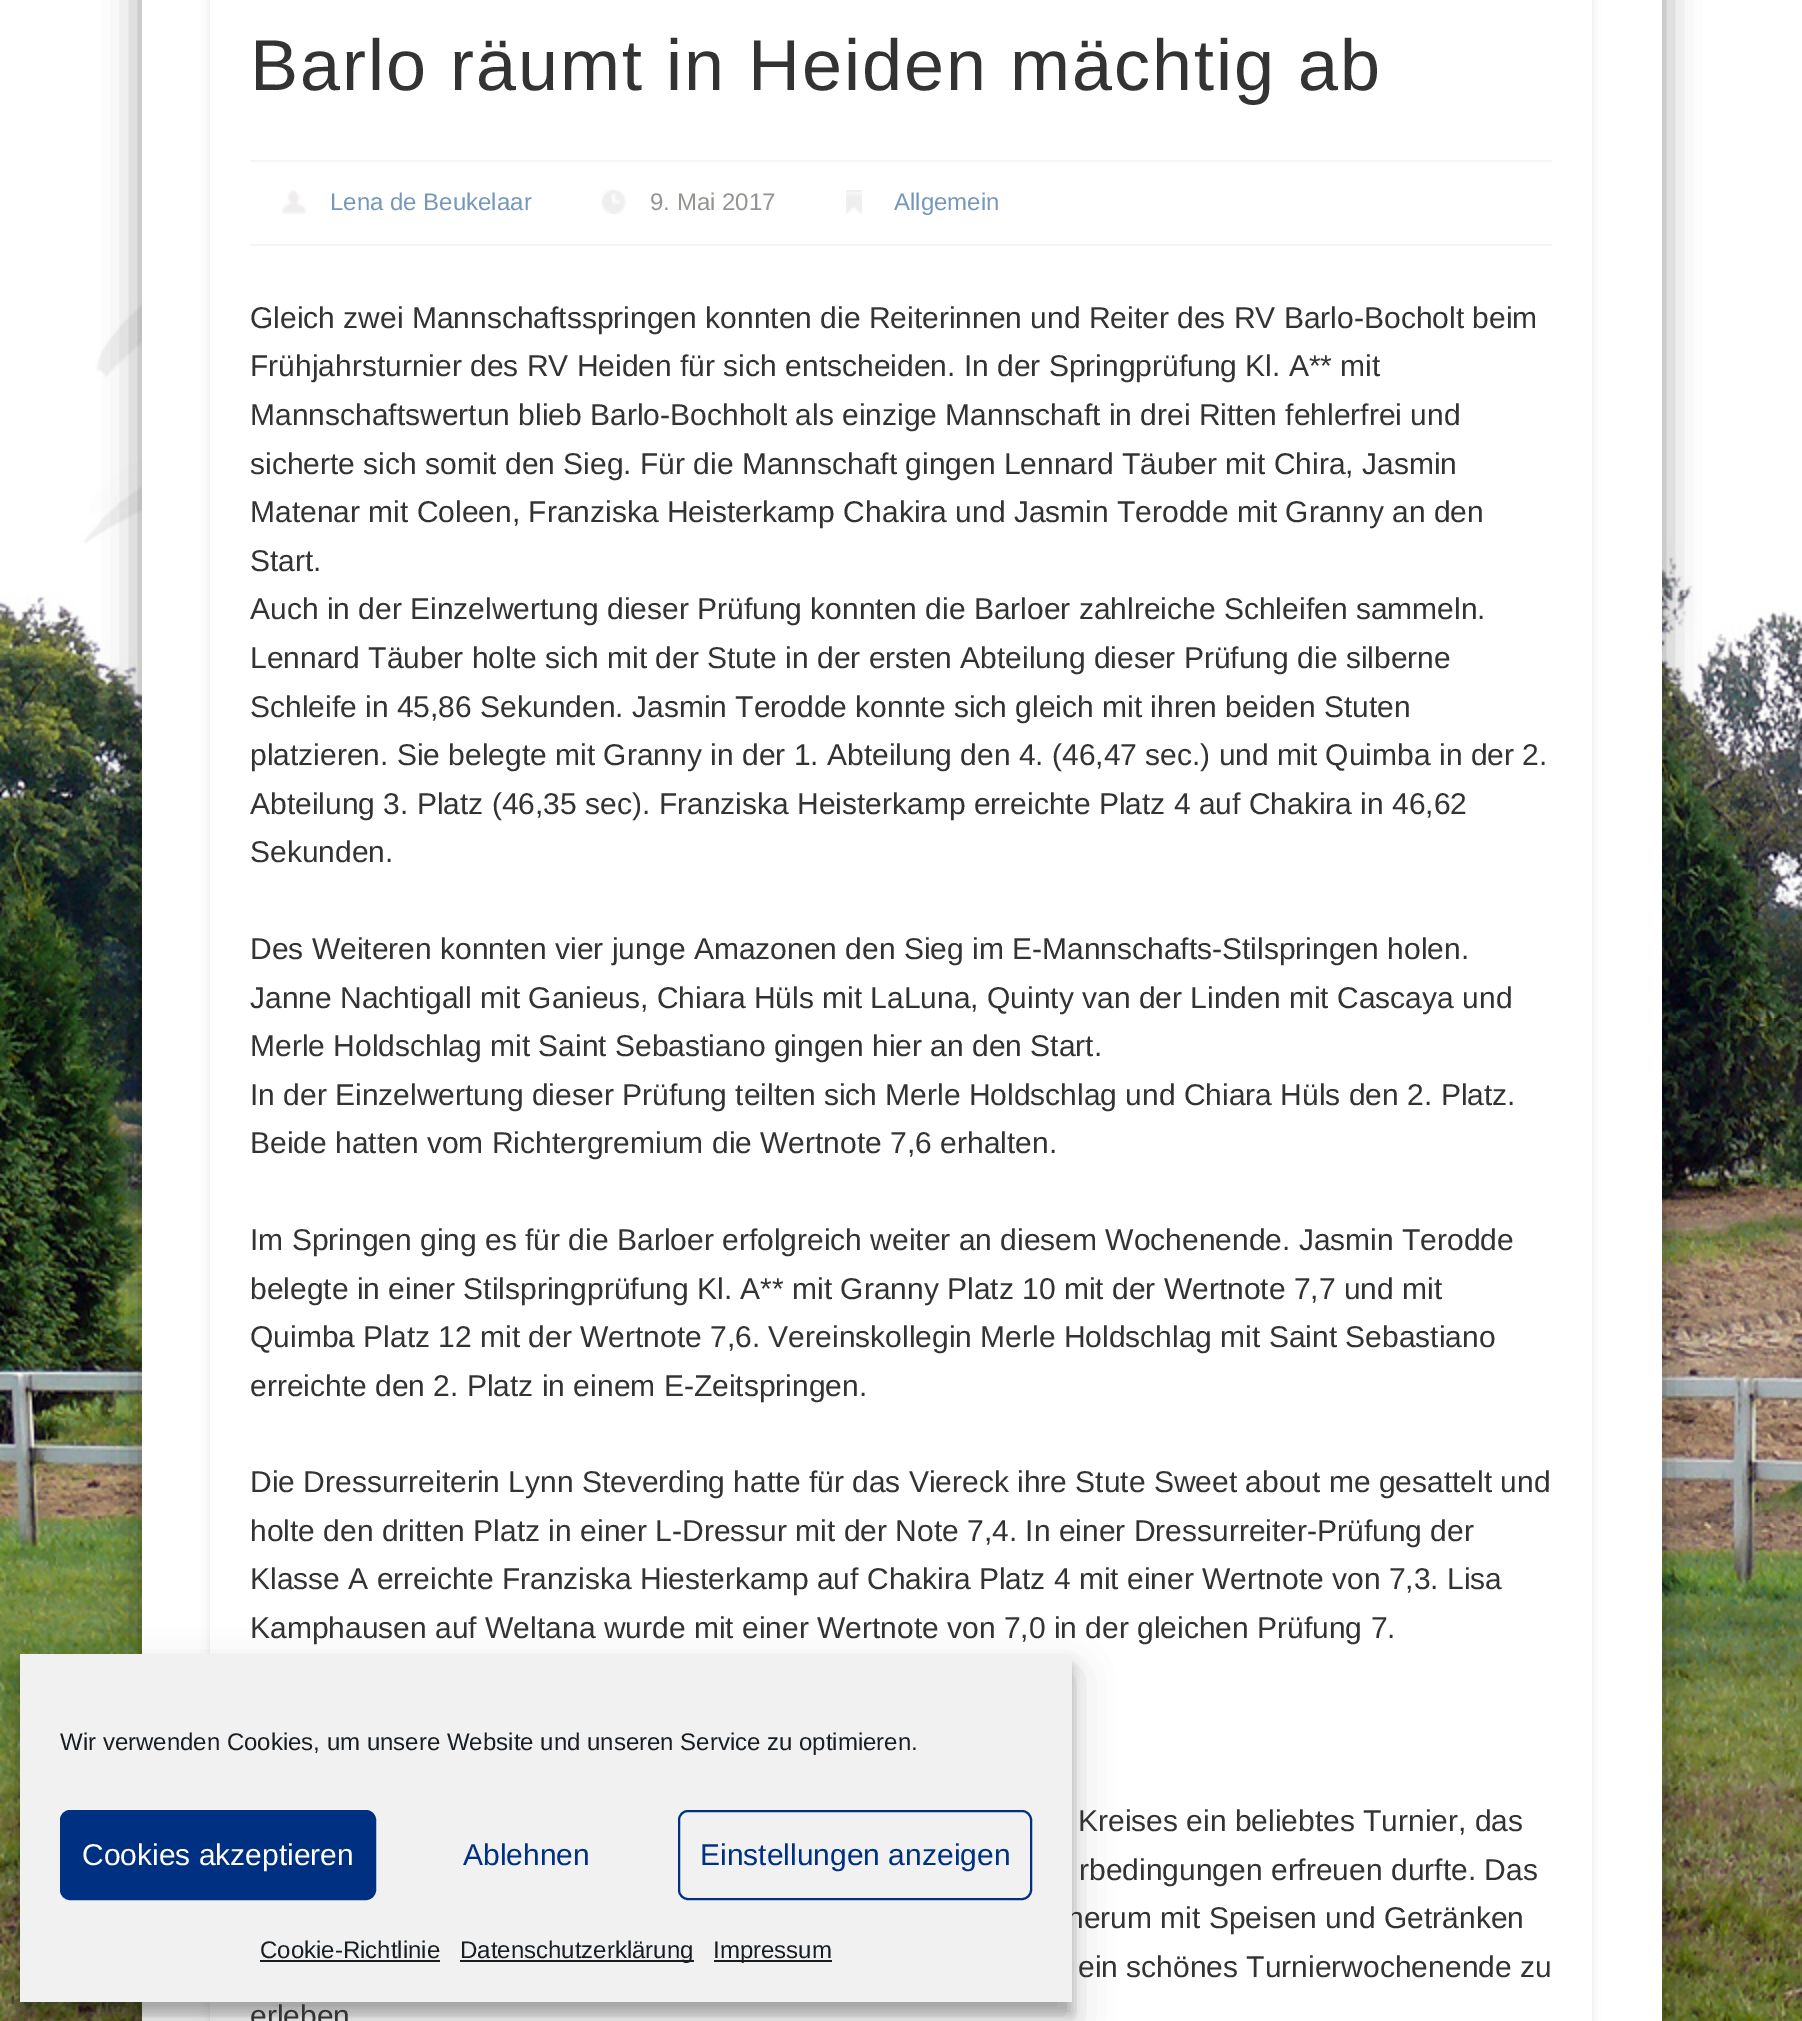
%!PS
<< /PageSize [1802 2021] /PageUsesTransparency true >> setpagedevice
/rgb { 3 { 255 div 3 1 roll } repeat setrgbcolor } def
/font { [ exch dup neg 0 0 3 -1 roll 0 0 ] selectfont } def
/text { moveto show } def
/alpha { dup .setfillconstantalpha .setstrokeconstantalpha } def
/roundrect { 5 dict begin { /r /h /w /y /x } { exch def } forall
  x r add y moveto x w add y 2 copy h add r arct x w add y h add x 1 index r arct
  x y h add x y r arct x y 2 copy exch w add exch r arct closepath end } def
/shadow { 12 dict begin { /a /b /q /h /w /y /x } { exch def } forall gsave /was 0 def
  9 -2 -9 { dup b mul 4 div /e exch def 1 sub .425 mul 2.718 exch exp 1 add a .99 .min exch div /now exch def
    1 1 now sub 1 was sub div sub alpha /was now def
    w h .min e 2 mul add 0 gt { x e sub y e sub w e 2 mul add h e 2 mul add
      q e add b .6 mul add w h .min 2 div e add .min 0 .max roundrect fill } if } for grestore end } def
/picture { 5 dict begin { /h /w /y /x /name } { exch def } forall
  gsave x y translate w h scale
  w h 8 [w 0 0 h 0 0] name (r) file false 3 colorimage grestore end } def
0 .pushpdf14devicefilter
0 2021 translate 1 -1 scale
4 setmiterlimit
255 255 255 rgb
0 0 1802 2021 rectfill
(img_01.rgb) 0 0 1802 2021 picture
0 0 0 rgb
142 -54 1520 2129 0 18 0.4 shadow
255 255 255 rgb
142 0 1520 2021 rectfill
gsave
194 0 moveto 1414 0 rlineto 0 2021 rlineto -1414 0 rlineto closepath 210 -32 moveto 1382 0 rlineto 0 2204 rlineto -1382 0 rlineto closepath eoclip newpath
0 0 0 rgb
210 -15 1382 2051 0 5 0.1 shadow
grestore
244 244 244 rgb
250 160 1302 2 rectfill
250 244 1302 2 rectfill
(img_02.rgb) 282 190 24 24 picture
(img_03.rgb) 602 190 24 24 picture
(img_04.rgb) 846 190 16 24 picture
0 0 0 rgb
20 1666 1052 348 0 6 0.23 shadow
20 1674 1052 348 0 20 0.19 shadow
/LiberationSans-Regular 72 font
51 51 51 rgb
250 90 moveto 2 0 (Barlo räumt in Heiden mächtig ab) ashow
/LiberationSans-Regular 24 font
117 151 185 rgb
(Lena de Beukelaar) 330 210 text
150 148 145 rgb
(9. Mai 2017) 650 210 text
117 151 185 rgb
(Allgemein) 894 210 text
/LiberationSans-Regular 30 font
51 51 51 rgb
(Gleich zwei Mannschaftsspringen konnten die Reiterinnen und Reiter des RV Barlo-Bocholt beim) 250 328 text
(Frühjahrsturnier des RV Heiden für sich entscheiden. In der Springprüfung Kl. A** mit) 250 376 text
(Mannschaftswertun blieb Barlo-Bochholt als einzige Mannschaft in drei Ritten fehlerfrei und) 250 425 text
(sicherte sich somit den Sieg. Für die Mannschaft gingen Lennard Täuber mit Chira, Jasmin) 250 474 text
(Matenar mit Coleen, Franziska Heisterkamp Chakira und Jasmin Terodde mit Granny an den) 250 522 text
(Start.) 250 571 text
(Auch in der Einzelwertung dieser Prüfung konnten die Barloer zahlreiche Schleifen sammeln.) 250 619 text
(Lennard Täuber holte sich mit der Stute in der ersten Abteilung dieser Prüfung die silberne) 250 668 text
(Schleife in 45,86 Sekunden. Jasmin Terodde konnte sich gleich mit ihren beiden Stuten) 250 717 text
(platzieren. Sie belegte mit Granny in der 1. Abteilung den 4. \(46,47 sec.\) und mit Quimba in der 2.) 250 765 text
(Abteilung 3. Platz \(46,35 sec\). Franziska Heisterkamp erreichte Platz 4 auf Chakira in 46,62) 250 814 text
(Sekunden.) 250 862 text
(Des Weiteren konnten vier junge Amazonen den Sieg im E-Mannschafts-Stilspringen holen.) 250 959 text
(Janne Nachtigall mit Ganieus, Chiara Hüls mit LaLuna, Quinty van der Linden mit Cascaya und) 250 1008 text
(Merle Holdschlag mit Saint Sebastiano gingen hier an den Start.) 250 1056 text
(In der Einzelwertung dieser Prüfung teilten sich Merle Holdschlag und Chiara Hüls den 2. Platz.) 250 1105 text
(Beide hatten vom Richtergremium die Wertnote 7,6 erhalten.) 250 1153 text
(Im Springen ging es für die Barloer erfolgreich weiter an diesem Wochenende. Jasmin Terodde) 250 1250 text
(belegte in einer Stilspringprüfung Kl. A** mit Granny Platz 10 mit der Wertnote 7,7 und mit) 250 1299 text
(Quimba Platz 12 mit der Wertnote 7,6. Vereinskollegin Merle Holdschlag mit Saint Sebastiano) 250 1347 text
(erreichte den 2. Platz in einem E-Zeitspringen.) 250 1396 text
(Die Dressurreiterin Lynn Steverding hatte für das Viereck ihre Stute Sweet about me gesattelt und) 250 1492 text
(holte den dritten Platz in einer L-Dressur mit der Note 7,4. In einer Dressurreiter-Prüfung der) 250 1541 text
(Klasse A erreichte Franziska Hiesterkamp auf Chakira Platz 4 mit einer Wertnote von 7,3. Lisa) 250 1589 text
(Kamphausen auf Weltana wurde mit einer Wertnote von 7,0 in der gleichen Prüfung 7.) 250 1638 text
(Kreises ein beliebtes Turnier, das) 1078 1831 text
(rbedingungen erfreuen durfte. Das) 1079 1880 text
(herum mit Speisen und Getränken) 1067 1928 text
(ein schönes Turnierwochenende zu) 1078 1977 text
(erleben) 250 2026 text
241 241 241 rgb
20 1654 1052 348 rectfill
/LiberationSans-Regular 24 font
25 30 35 rgb
(Wir verwenden Cookies, um unsere Website und unseren Service zu optimieren.) 60 1750 text
0 48 130 rgb
61 1811 314 88 9 roundrect gsave fill grestore
2 setlinewidth
stroke
/LiberationSans-Regular 30 font
255 255 255 rgb
(Cookies akzeptieren) 82 1865 text
0 48 130 rgb
(Ablehnen) 463 1865 text
679 1811 352 88 9 roundrect stroke
(Einstellungen anzeigen) 700 1865 text
/LiberationSans-Regular 24 font
25 30 35 rgb
(Cookie-Richtlinie) 260 1958 text
260 1960 180 2 rectfill
460 1960 234 2 rectfill
(Datenschutzerklärung) 460 1958 text
714 1960 118 2 rectfill
(Impressum) 713 1958 text
.poppdf14devicefilter showpage
